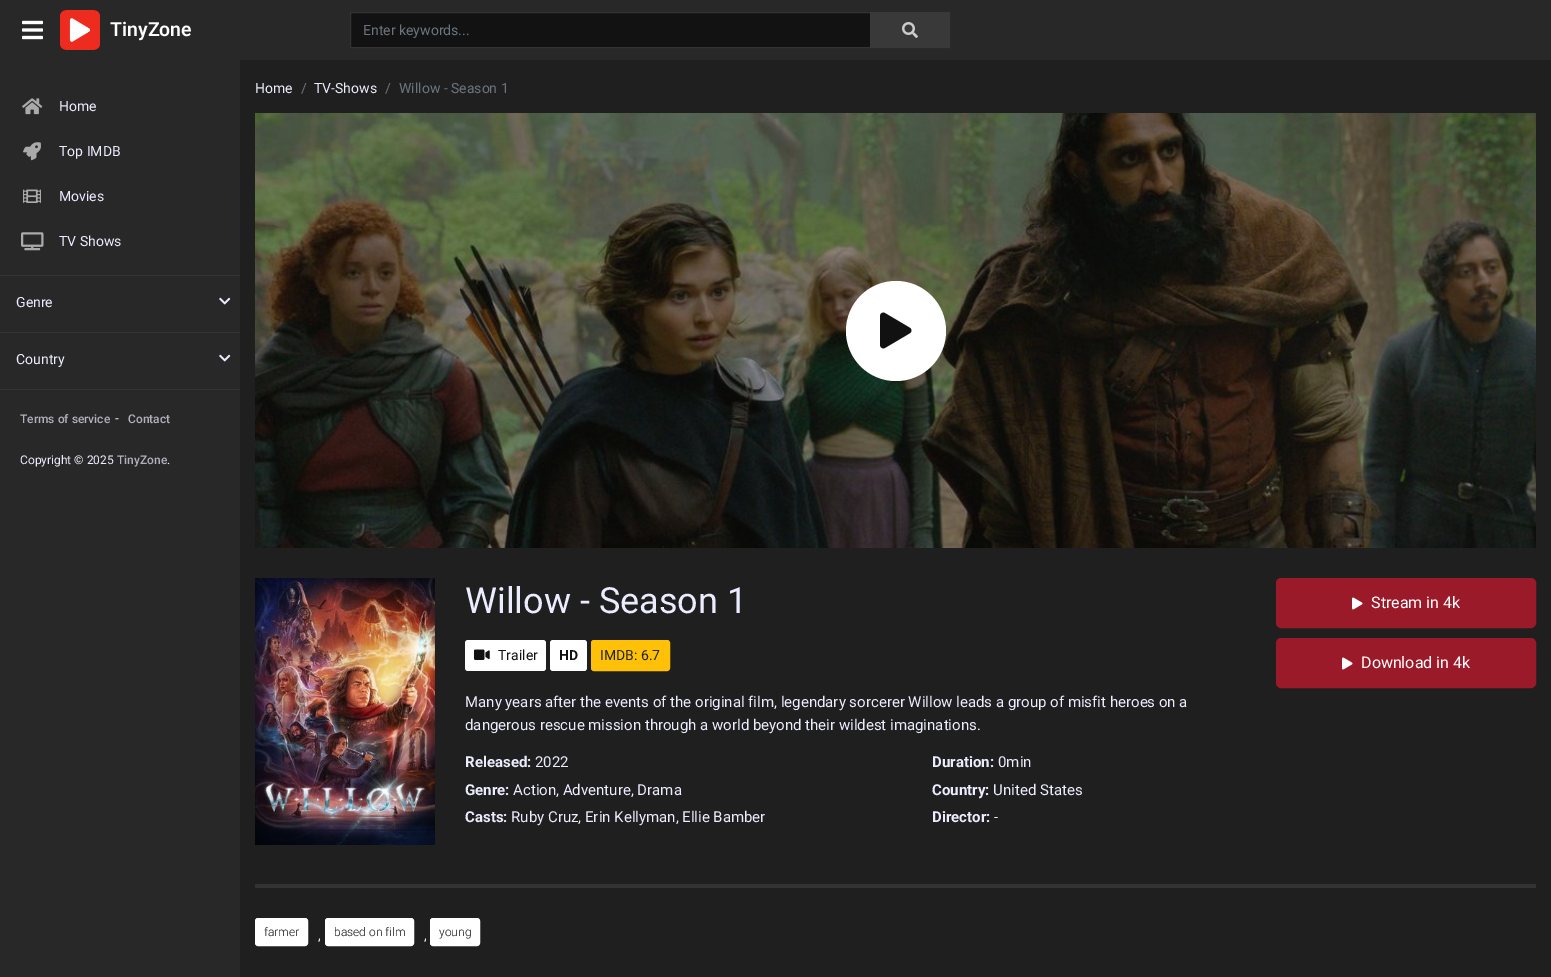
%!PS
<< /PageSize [1551 977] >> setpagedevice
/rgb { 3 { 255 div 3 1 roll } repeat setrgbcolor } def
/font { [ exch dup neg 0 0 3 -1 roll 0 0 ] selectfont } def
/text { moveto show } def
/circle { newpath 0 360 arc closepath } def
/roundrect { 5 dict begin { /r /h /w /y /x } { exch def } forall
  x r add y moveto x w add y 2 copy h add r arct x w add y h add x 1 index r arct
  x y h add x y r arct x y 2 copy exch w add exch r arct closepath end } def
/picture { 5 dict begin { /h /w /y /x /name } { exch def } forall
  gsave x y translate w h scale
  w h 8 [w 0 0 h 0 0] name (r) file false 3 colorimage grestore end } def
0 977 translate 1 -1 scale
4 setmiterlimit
31 31 31 rgb
0 0 1551 977 rectfill
40 40 40 rgb
0 0 1551 60 rectfill
(img_01.rgb) 22 20 21 20 picture
(img_02.rgb) 60 10 40 40 picture
18 18 18 rgb
351 13 519 34 rectfill
51 51 51 rgb
350.5 12.5 599 35 rectstroke
57 57 57 rgb
870 12 80 36 rectfill
(img_03.rgb) 902 22 16 16 picture
40 40 40 rgb
0 60 240 917 rectfill
51 51 51 rgb
0 275 240 1 rectfill
(img_04.rgb) 22 98 21 17 picture
(img_05.rgb) 23 142 18 19 picture
(img_06.rgb) 23 189 18 14 picture
(img_07.rgb) 21 232 23 19 picture
0 332 240 1 rectfill
(img_08.rgb) 219 297 12 8 picture
0 389 240 1 rectfill
(img_08.rgb) 219 354 12 8 picture
(img_09.rgb) 255 113 1281 435 picture
255 255 255 rgb
896 331 50 circle fill
(img_10.rgb) 880 312 32 37 picture
51 51 51 rgb
255 884 1281 4 rectfill
(img_11.rgb) 255 578 180 267 picture
155 26 41 rgb
1276.5 578.5 259 49 4.5 roundrect gsave fill grestore
stroke
(img_12.rgb) 1352 597 11 13 picture
1276.5 638.5 259 49 4.5 roundrect gsave fill grestore
stroke
(img_12.rgb) 1342 657 11 13 picture
255 255 255 rgb
465 640 81 31 3 roundrect fill
(img_13.rgb) 474 649 16 11 picture
550 640 37 31 3 roundrect fill
255 193 7 rgb
591.5 640.5 78 30 2.5 roundrect gsave fill grestore
stroke
255 255 255 rgb
255.5 918.5 52 27 2.5 roundrect gsave fill grestore
stroke
325.5 918.5 88 27 2.5 roundrect gsave fill grestore
stroke
430.5 918.5 49 27 2.5 roundrect gsave fill grestore
stroke
/Roboto-SemiBold 19.5 font
(TinyZone) 110 36 text
/Roboto-Regular 14 font
108 117 125 rgb
(Enter keywords...) 363 35 text
236 236 255 rgb
(Home) 59 111 text
(Top IMDB) 59 156 text
(Movies) 59 201 text
(TV Shows) 59 246 text
(Genre) 16 307 text
(Country) 16 364 text
/Roboto-Medium 12 font
177 177 191 rgb
(Terms of service) 20 423 text
/Roboto-Regular 14 font
236 236 255 rgb
(-) 115 423 text
/Roboto-Medium 12 font
177 177 191 rgb
(Contact) 128 423 text
/Roboto-Regular 12 font
236 236 255 rgb
(Copyright © 2025) 20 464 text
/Roboto-Medium 12 font
177 177 191 rgb
(TinyZone) 117 464 text
/Roboto-Regular 12 font
236 236 255 rgb
(.) 167 464 text
/Roboto-Regular 14 font
(Home) 255 93 text
108 117 125 rgb
(/) 301 93 text
236 236 255 rgb
(TV-Shows) 314 93 text
108 117 125 rgb
(/) 385 93 text
(Willow - Season 1) 399 93 text
/Roboto-Regular 36 font
236 236 255 rgb
(Willow - Season 1) 465 613 text
/Roboto-Regular 16 font
255 255 255 rgb
(Stream in 4k) 1371 608 text
(Download in 4k) 1361 668 text
/Roboto-Regular 14 font
17 17 17 rgb
(Trailer) 498 660 text
/Roboto-Bold 14 font
(HD) 559 660 text
/Roboto-Regular 14 font
33 37 41 rgb
(IMDB: 6.7) 600 660 text
/Roboto-Regular 15 font
236 236 255 rgb
(Many years after the events of the original film, legendary sorcerer Willow leads a group of misfit heroes on a) 465 707 text
(dangerous rescue mission through a world beyond their wildest imaginations.) 465 730 text
/Roboto-Bold 15 font
(Released:) 465 767 text
/Roboto-Regular 15 font
(2022) 535 767 text
/Roboto-Bold 15 font
(Genre:) 465 795 text
/Roboto-Regular 15 font
(Action, Adventure, Drama) 513 795 text
/Roboto-Bold 15 font
(Casts:) 465 822 text
/Roboto-Regular 15 font
(Ruby Cruz, Erin Kellyman, Ellie Bamber) 511 822 text
/Roboto-Bold 15 font
(Duration:) 932 767 text
/Roboto-Regular 15 font
(0min) 998 767 text
/Roboto-Bold 15 font
(Country:) 932 795 text
/Roboto-Regular 15 font
(United States) 993 795 text
/Roboto-Bold 15 font
(Director:) 932 822 text
/Roboto-Regular 15 font
(-) 994 822 text
/Roboto-Light 12 font
17 17 17 rgb
(farmer) 264 936 text
(based on film) 334 936 text
(young) 439 936 text
/Roboto-Regular 14 font
236 236 255 rgb
(,) 318 940 text
(,) 424 940 text
showpage
